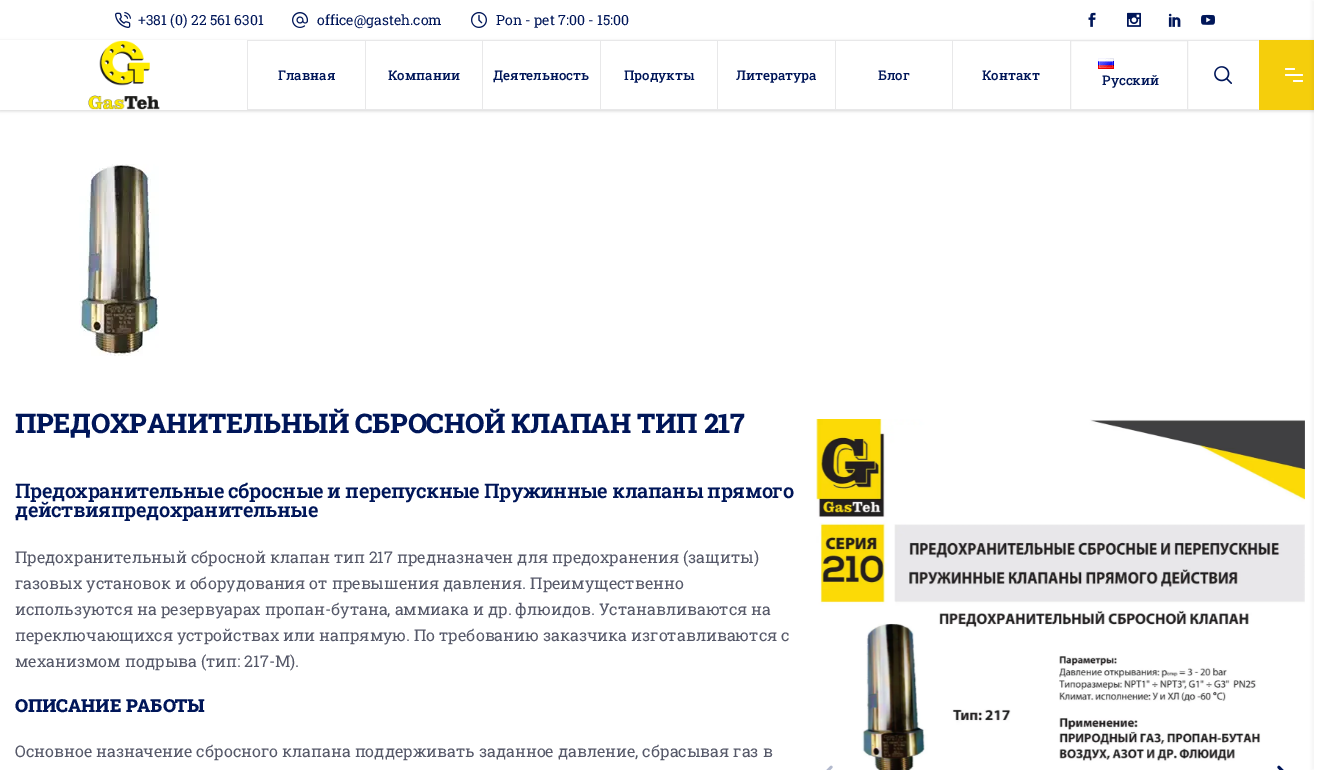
%!PS
<< /PageSize [1329 770] /PageUsesTransparency true >> setpagedevice
/rgb { 3 { 255 div 3 1 roll } repeat setrgbcolor } def
/font { [ exch dup neg 0 0 3 -1 roll 0 0 ] selectfont } def
/text { moveto show } def
/alpha { dup .setfillconstantalpha .setstrokeconstantalpha } def
/roundrect { 5 dict begin { /r /h /w /y /x } { exch def } forall
  x r add y moveto x w add y 2 copy h add r arct x w add y h add x 1 index r arct
  x y h add x y r arct x y 2 copy exch w add exch r arct closepath end } def
/shadow { 12 dict begin { /a /b /q /h /w /y /x } { exch def } forall gsave /was 0 def
  9 -2 -9 { dup b mul 4 div /e exch def 1 sub .425 mul 2.718 exch exp 1 add a .99 .min exch div /now exch def
    1 1 now sub 1 was sub div sub alpha /was now def
    w h .min e 2 mul add 0 gt { x e sub y e sub w e 2 mul add h e 2 mul add
      q e add b .6 mul add w h .min 2 div e add .min 0 .max roundrect fill } if } for grestore end } def
/picture { 5 dict begin { /h /w /y /x /name } { exch def } forall
  gsave x y translate w h scale
  w h 8 [w 0 0 h 0 0] name (r) file false 3 colorimage grestore end } def
0 .pushpdf14devicefilter
0 770 translate 1 -1 scale
4 setmiterlimit
255 255 255 rgb
0 0 1329 770 rectfill
(img_01.rgb) 115 12 16 16 picture
(img_02.rgb) 292 12 16 16 picture
(img_03.rgb) 471 12 16 16 picture
(img_04.rgb) 1088 12 8 15 picture
(img_05.rgb) 1127 12 14 15 picture
(img_06.rgb) 1168 13 13 14 picture
(img_07.rgb) 1201 14 14 11 picture
gsave
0 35 moveto 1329 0 rlineto 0 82 rlineto -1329 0 rlineto closepath 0 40 moveto 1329 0 rlineto 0 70 rlineto -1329 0 rlineto closepath eoclip newpath
0 0 0 rgb
0 41 1329 70 0 1.5 0.15 shadow
grestore
(img_08.rgb) 88 40 72 70 picture
232 232 233 rgb
247 40 823 1 rectfill
247 109 823 1 rectfill
247 40 1 70 rectfill
365 40 1 70 rectfill
482 40 1 70 rectfill
600 40 1 70 rectfill
717 40 1 70 rectfill
835 40 1 70 rectfill
952 40 1 70 rectfill
1070.5 40.5 117 69 rectstroke
(img_09.rgb) 1098 58 16 11 picture
1188 40 moveto 71 0 rlineto -1 1 rlineto -70 0 rlineto closepath fill
1259 110 moveto -71 0 rlineto 0 -1 rlineto 70 0 rlineto closepath fill
(img_10.rgb) 1214 66 18 18 picture
245 206 12 rgb
1259 40 55 70 rectfill
255 255 255 rgb
1285 68 10 2 1 roundrect fill
1285 74 18 2 1 roundrect fill
1293 80 10 2 1 roundrect fill
(img_11.rgb) 79 164 80 192 picture
(img_12.rgb) 816 419 489 351 picture
0.08 alpha
1304 420 1 79 rectfill
1 alpha
(img_13.rgb) 826 765 7 5 picture
(img_14.rgb) 1277 765 7 5 picture
0 0 0 rgb
1311 0 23 770 0 1.5 0.04 shadow
255 255 255 rgb
1314 0 15 770 rectfill
/RobotoSlab-Regular 14 font
0 22 89 rgb
(+381 \(0\) 22 561 6301) 138 25 text
(office@gasteh.com) 317 25 text
(Pon - pet 7:00 - 15:00) 496 25 text
/RobotoSlab-Medium 13.25 font
(Главная) 278 80 text
(Компании) 388 80 text
(Деятельность) 493 80 text
(Продукты) 624 80 text
(Литература) 736 80 text
(Блог) 878 80 text
(Контакт) 982 80 text
(Русский) 1102 85 text
/RobotoSlab-ExtraBold 27 font
15 433 moveto -0.25 0 (ПРЕДОХРАНИТЕЛЬНЫЙ CБРОСНОЙ КЛАПАН ТИП 217) ashow
/RobotoSlab-SemiBold 20 font
15 498 moveto -0.4 0 (Предохранительные сбросные и перепускные Пружинные клапаны прямого) ashow
15 517 moveto -0.4 0 (действияпредохранительные) ashow
/RobotoSlab-Regular 16 font
86 89 105 rgb
(Предохранительный cбросной клапан тип 217 предназначен для предохранения \(защиты\)) 15 563 text
(газовых установок и оборудования от превышения давления. Преимущественно) 15 589 text
(используются на резервуарах пропан-бутана, аммиака и др. флюидов. Устанавливаются на) 15 615 text
(переключающихся устройствах или напрямую. По требованию заказчика изготавливаются с) 15 641 text
(механизмом подрыва \(тип: 217-M\).) 15 667 text
/RobotoSlab-Black 18 font
0 22 89 rgb
(ОПИСАНИЕ РАБОТЫ) 15 712 text
/RobotoSlab-Regular 16 font
86 89 105 rgb
(Oсновное назначение сбросного клапана поддерживать заданное давление, сбрасывая газ в) 15 757 text
.poppdf14devicefilter showpage
